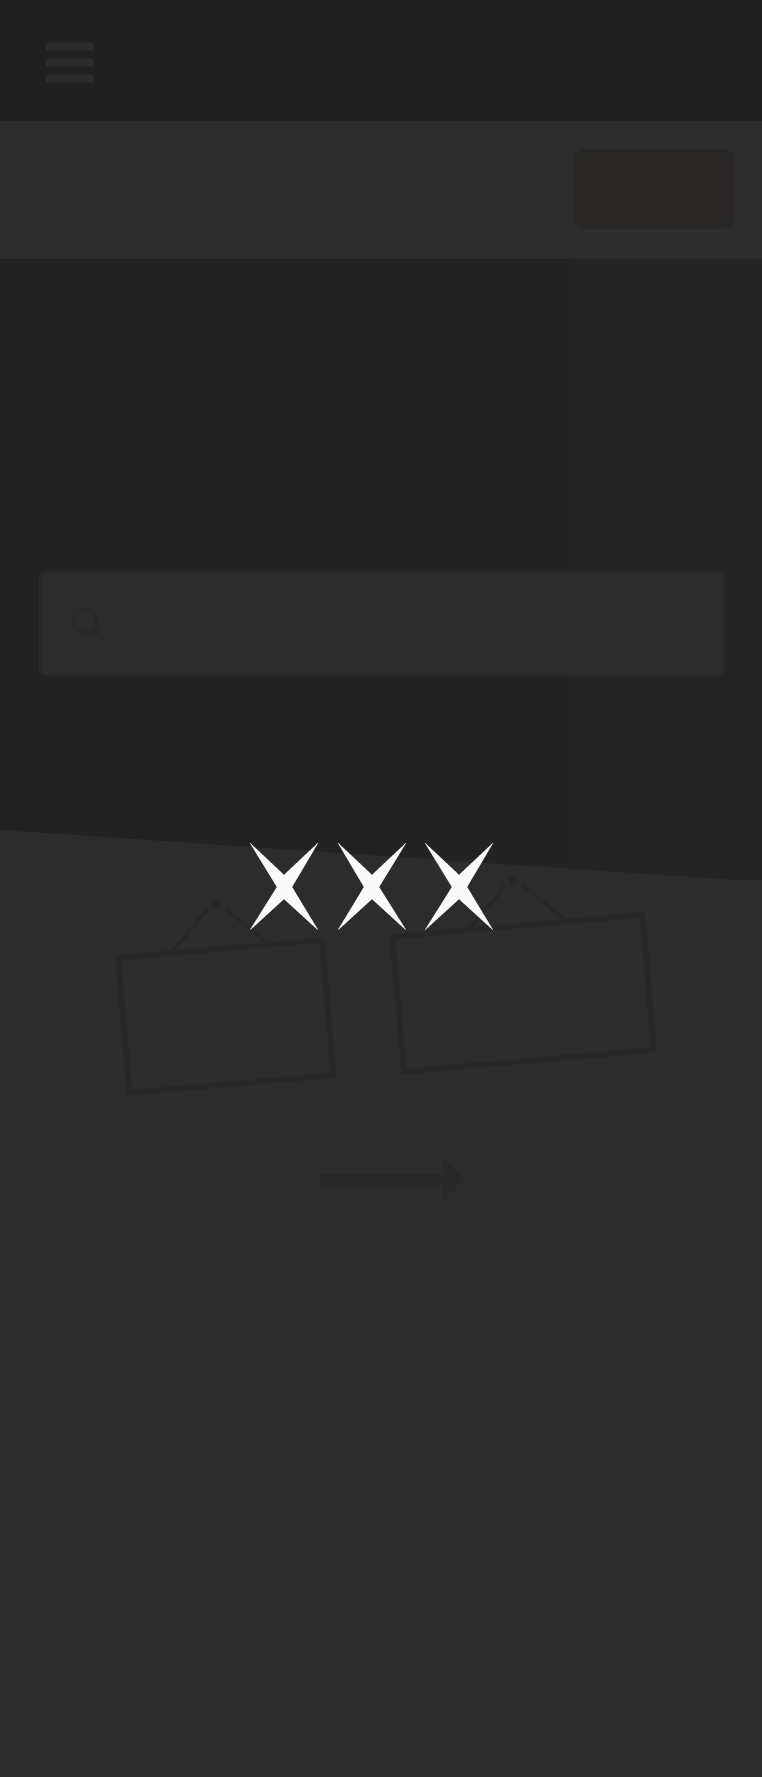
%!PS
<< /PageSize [762 1777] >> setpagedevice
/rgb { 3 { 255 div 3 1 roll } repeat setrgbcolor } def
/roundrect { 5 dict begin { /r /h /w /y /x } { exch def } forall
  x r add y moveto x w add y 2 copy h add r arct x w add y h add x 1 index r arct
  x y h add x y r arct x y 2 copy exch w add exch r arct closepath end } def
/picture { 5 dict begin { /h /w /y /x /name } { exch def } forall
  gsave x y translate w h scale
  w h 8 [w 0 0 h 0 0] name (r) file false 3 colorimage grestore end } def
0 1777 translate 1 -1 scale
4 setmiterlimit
44 44 44 rgb
0 0 762 1777 rectfill
33 33 33 rgb
0 0 762 121 rectfill
(img_01.rgb) 45 42 49 41 picture
40 39 37 rgb
574 149 161 80 11 roundrect fill
gsave 0 259 moveto 762 0 rlineto 0 621 rlineto -762 0 rlineto closepath clip newpath
<< /ShadingType 2 /ColorSpace /DeviceRGB /Coords [0 570 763 570] /Extend [true true] /Function << /FunctionType 2 /Domain [0 1] /C0 [0.133 0.133 0.133] /C1 [0.145 0.145 0.145] /N 1 >> >> shfill grestore
44 44 44 rgb
40 572 684 103 6 roundrect gsave fill grestore
41 41 41 rgb
2 setlinewidth
stroke
(img_02.rgb) 71 607 34 34 picture
44 44 44 rgb
0 882 moveto 0 -52 rlineto 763 52 rlineto closepath fill
40 39 37 rgb
3.5 setlinewidth
215.5 900 moveto 66 55.5 rlineto -55.5 66 rlineto -66 -55.5 rlineto closepath stroke
44 44 44 rgb
118 955 moveto 203 -17 rlineto 2 -1 3 1 4 3 rcurveto 11 133 rlineto 0 2 -1 4 -3 4 rcurveto -202 17 rlineto -2 1 -4 -1 -4 -3 rcurveto -12 -133 rlineto 0 -2 1 -4 3 -4 rcurveto closepath fill
40 39 37 rgb
5.3 setlinewidth
118.5 958 moveto 202.5 -18 rlineto 1 1 rlineto 11.5 133 rlineto -0.5 1 rlineto -202.5 18 rlineto -1 -1 rlineto -11.5 -133 rlineto closepath stroke
215 893 moveto 13.5 -1 15.5 19.5 2 21 rcurveto -14 1 -16 -20 -2 -21 rcurveto closepath fill
44 44 44 rgb
215 895.5 moveto 10.5 -1 12 15 1.5 16 rcurveto -10.5 0.5 -11.5 -15 -1.5 -16 rcurveto closepath stroke
40 39 37 rgb
3.5 setlinewidth
513 877 moveto 66 55 rlineto -55.5 66 rlineto -66 -55 rlineto closepath stroke
44 44 44 rgb
393 934 moveto 248 -22 rlineto 2 0 4 2 4 4 rcurveto 12 133 rlineto 0 2 -2 3 -4 4 rcurveto -248 21 rlineto -2 0 -3 -1 -3 -3 rcurveto -12 -133 rlineto 0 -2 1 -4 3 -4 rcurveto closepath fill
40 39 37 rgb
5.3 setlinewidth
393.5 936.5 moveto 248 -21.5 rlineto 1 1 rlineto 11.5 133 rlineto -1 1 rlineto -248 21.5 rlineto -1 -0.5 rlineto -11.5 -133.5 rlineto closepath stroke
512.5 870 moveto 13.5 -1.5 15.5 19.5 2 21 rcurveto -14 1 -16 -20 -2 -21 rcurveto closepath fill
44 44 44 rgb
512.5 872.5 moveto 10.5 -1 12 15 1.5 15.5 rcurveto -10 1 -11.5 -14.5 -1.5 -15.5 rcurveto closepath stroke
40 40 40 rgb
320 1174 123 11 rectfill
443 1200 moveto 0 -42 rlineto 21 22 rlineto closepath fill
250 250 250 rgb
318 843 moveto -34 32 rlineto -34 -32 rlineto 27 44 rlineto -27 43 rlineto 34 -31 rlineto 34 31 rlineto -26 -43 rlineto closepath fill
406 843 moveto -34 32 rlineto -34 -32 rlineto 26 44 rlineto -26 43 rlineto 34 -31 rlineto 34 31 rlineto -27 -43 rlineto closepath fill
493 843 moveto -34 32 rlineto -34 -32 rlineto 27 44 rlineto -27 43 rlineto 34 -31 rlineto 34 31 rlineto -26 -43 rlineto closepath fill
showpage
